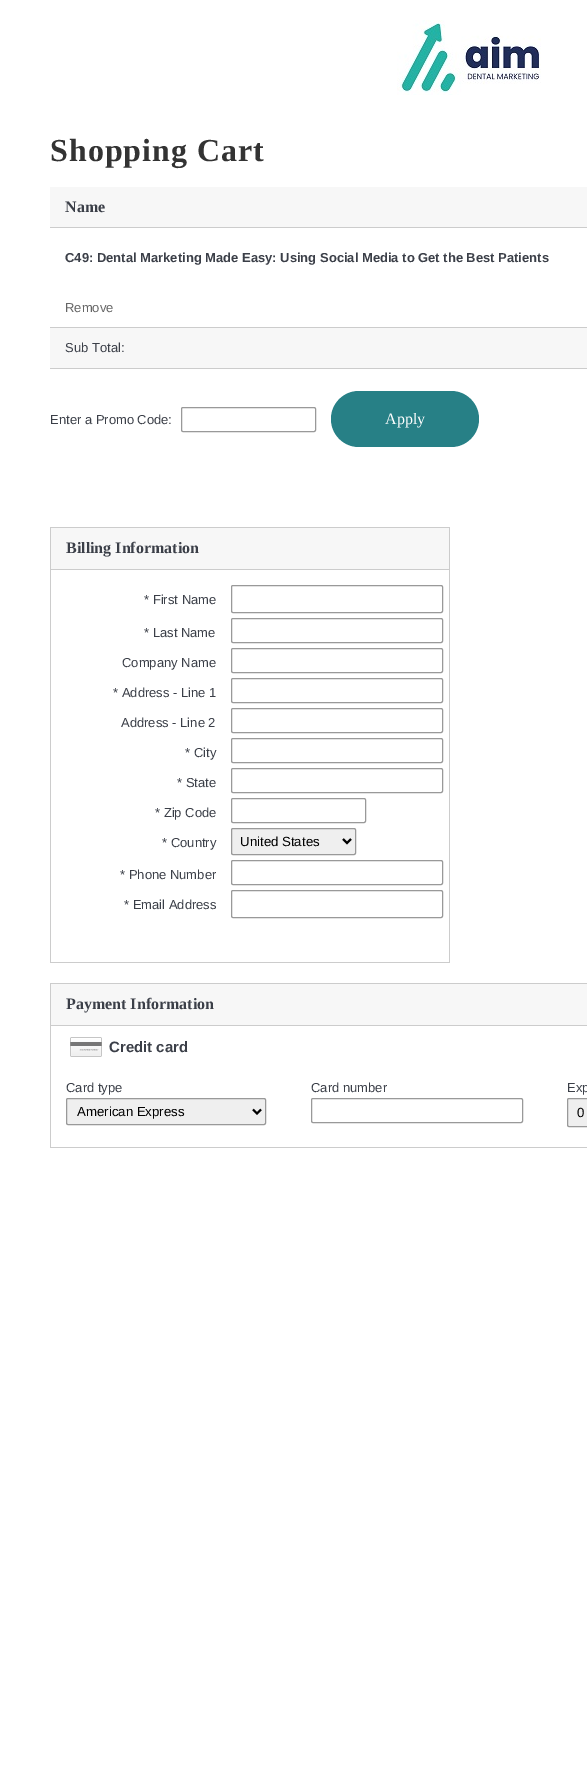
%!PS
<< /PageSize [587 1781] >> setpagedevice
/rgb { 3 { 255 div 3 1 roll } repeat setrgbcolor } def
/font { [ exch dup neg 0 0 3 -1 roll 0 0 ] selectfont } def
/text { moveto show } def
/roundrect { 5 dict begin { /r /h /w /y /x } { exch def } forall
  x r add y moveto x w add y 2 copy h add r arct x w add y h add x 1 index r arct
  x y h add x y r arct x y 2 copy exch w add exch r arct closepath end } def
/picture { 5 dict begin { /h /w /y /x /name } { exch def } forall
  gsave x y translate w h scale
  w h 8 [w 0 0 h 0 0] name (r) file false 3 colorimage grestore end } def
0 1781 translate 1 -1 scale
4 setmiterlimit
255 255 255 rgb
0 0 587 1781 rectfill
(img_01.rgb) 397 20 144 75 picture
247 247 247 rgb
50 187 537 40 rectfill
204 204 204 rgb
50 227 537 1 rectfill
50 327 537 1 rectfill
247 247 247 rgb
50 328 537 40 rectfill
204 204 204 rgb
50 368 537 1 rectfill
153 153 153 rgb
181.5 407.5 134 24 1.5 roundrect stroke
39 128 134 rgb
331 391 148 56 28 roundrect fill
204 204 204 rgb
50 527 400 1 rectfill
449 527 1 436 rectfill
50 962 400 1 rectfill
50 527 1 436 rectfill
247 247 247 rgb
51 528 398 41 rectfill
204 204 204 rgb
50 569 400 1 rectfill
153 153 153 rgb
231.5 585.5 211 27 1.5 roundrect stroke
231.5 618.5 211 24 1.5 roundrect stroke
231.5 648.5 211 24 1.5 roundrect stroke
231.5 678.5 211 24 1.5 roundrect stroke
231.5 708.5 211 24 1.5 roundrect stroke
231.5 738.5 211 24 1.5 roundrect stroke
231.5 768.5 211 24 1.5 roundrect stroke
231.5 798.5 134 24 1.5 roundrect stroke
239 239 239 rgb
231.5 828.5 124 26 1.5 roundrect gsave fill grestore
153 153 153 rgb
stroke
0 0 0 rgb
2 setlinewidth
343 839 moveto 4 4 rlineto 4 -4 rlineto stroke
153 153 153 rgb
1 setlinewidth
231.5 860.5 211 24 1.5 roundrect stroke
231.5 890.5 211 27 1.5 roundrect stroke
204 204 204 rgb
50 983 537 1 rectfill
50 1147 537 1 rectfill
50 983 1 165 rectfill
247 247 247 rgb
51 984 536 41 rectfill
204 204 204 rgb
50 1025 537 1 rectfill
(img_02.rgb) 70 1037 32 20 picture
239 239 239 rgb
66.5 1098.5 199 26 1.5 roundrect gsave fill grestore
153 153 153 rgb
stroke
0 0 0 rgb
2 setlinewidth
253 1109.5 moveto 4 4 rlineto 4 -4 rlineto stroke
153 153 153 rgb
1 setlinewidth
311.5 1098.5 211 24 1.5 roundrect stroke
239 239 239 rgb
567.5 1098.5 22 28 1.5 roundrect gsave fill grestore
153 153 153 rgb
stroke
/LiberationSerif-Bold 32 font
51 51 51 rgb
50 161 moveto 1 0 (Shopping Cart) ashow
/LiberationSerif-Bold 16 font
59 63 72 rgb
(Name) 65 212 text
/LiberationSans-Bold 13 font
(C49: Dental Marketing Made Easy: Using Social Media to Get the Best Patients) 65 262 text
/LiberationSans-Regular 13 font
102 102 102 rgb
(Remove) 65 312 text
59 63 72 rgb
(Sub Total:) 65 352 text
(Enter a Promo Code:) 50 424 text
/LiberationSerif-Regular 16 font
255 255 255 rgb
(Apply) 385 424 text
/LiberationSerif-Bold 16 font
59 63 72 rgb
(Billing Information) 66 553 text
/LiberationSans-Regular 13 font
(* First Name) 144 604 text
(* Last Name) 144 637 text
(Company Name) 122 667 text
(* Address - Line 1) 113 697 text
(Address - Line 2) 121 727 text
(* City) 185 757 text
(* State) 177 787 text
(* Zip Code) 155 817 text
(* Country) 162 847 text
/LiberationSans-Regular 13.25 font
0 0 0 rgb
(United States) 240 846 text
/LiberationSans-Regular 13 font
59 63 72 rgb
(* Phone Number) 120 879 text
(* Email Address) 124 909 text
/LiberationSerif-Bold 16 font
(Payment Information) 66 1009 text
/LiberationSans-Bold 15 font
(Credit card) 109 1052 text
/LiberationSans-Regular 13 font
(Card type) 66 1092 text
/LiberationSans-Regular 13.25 font
0 0 0 rgb
(American Express) 77 1116 text
/LiberationSans-Regular 13 font
59 63 72 rgb
(Card number) 311 1092 text
(Exp) 567 1092 text
/LiberationSans-Regular 13.25 font
0 0 0 rgb
(0) 577 1117 text
showpage
